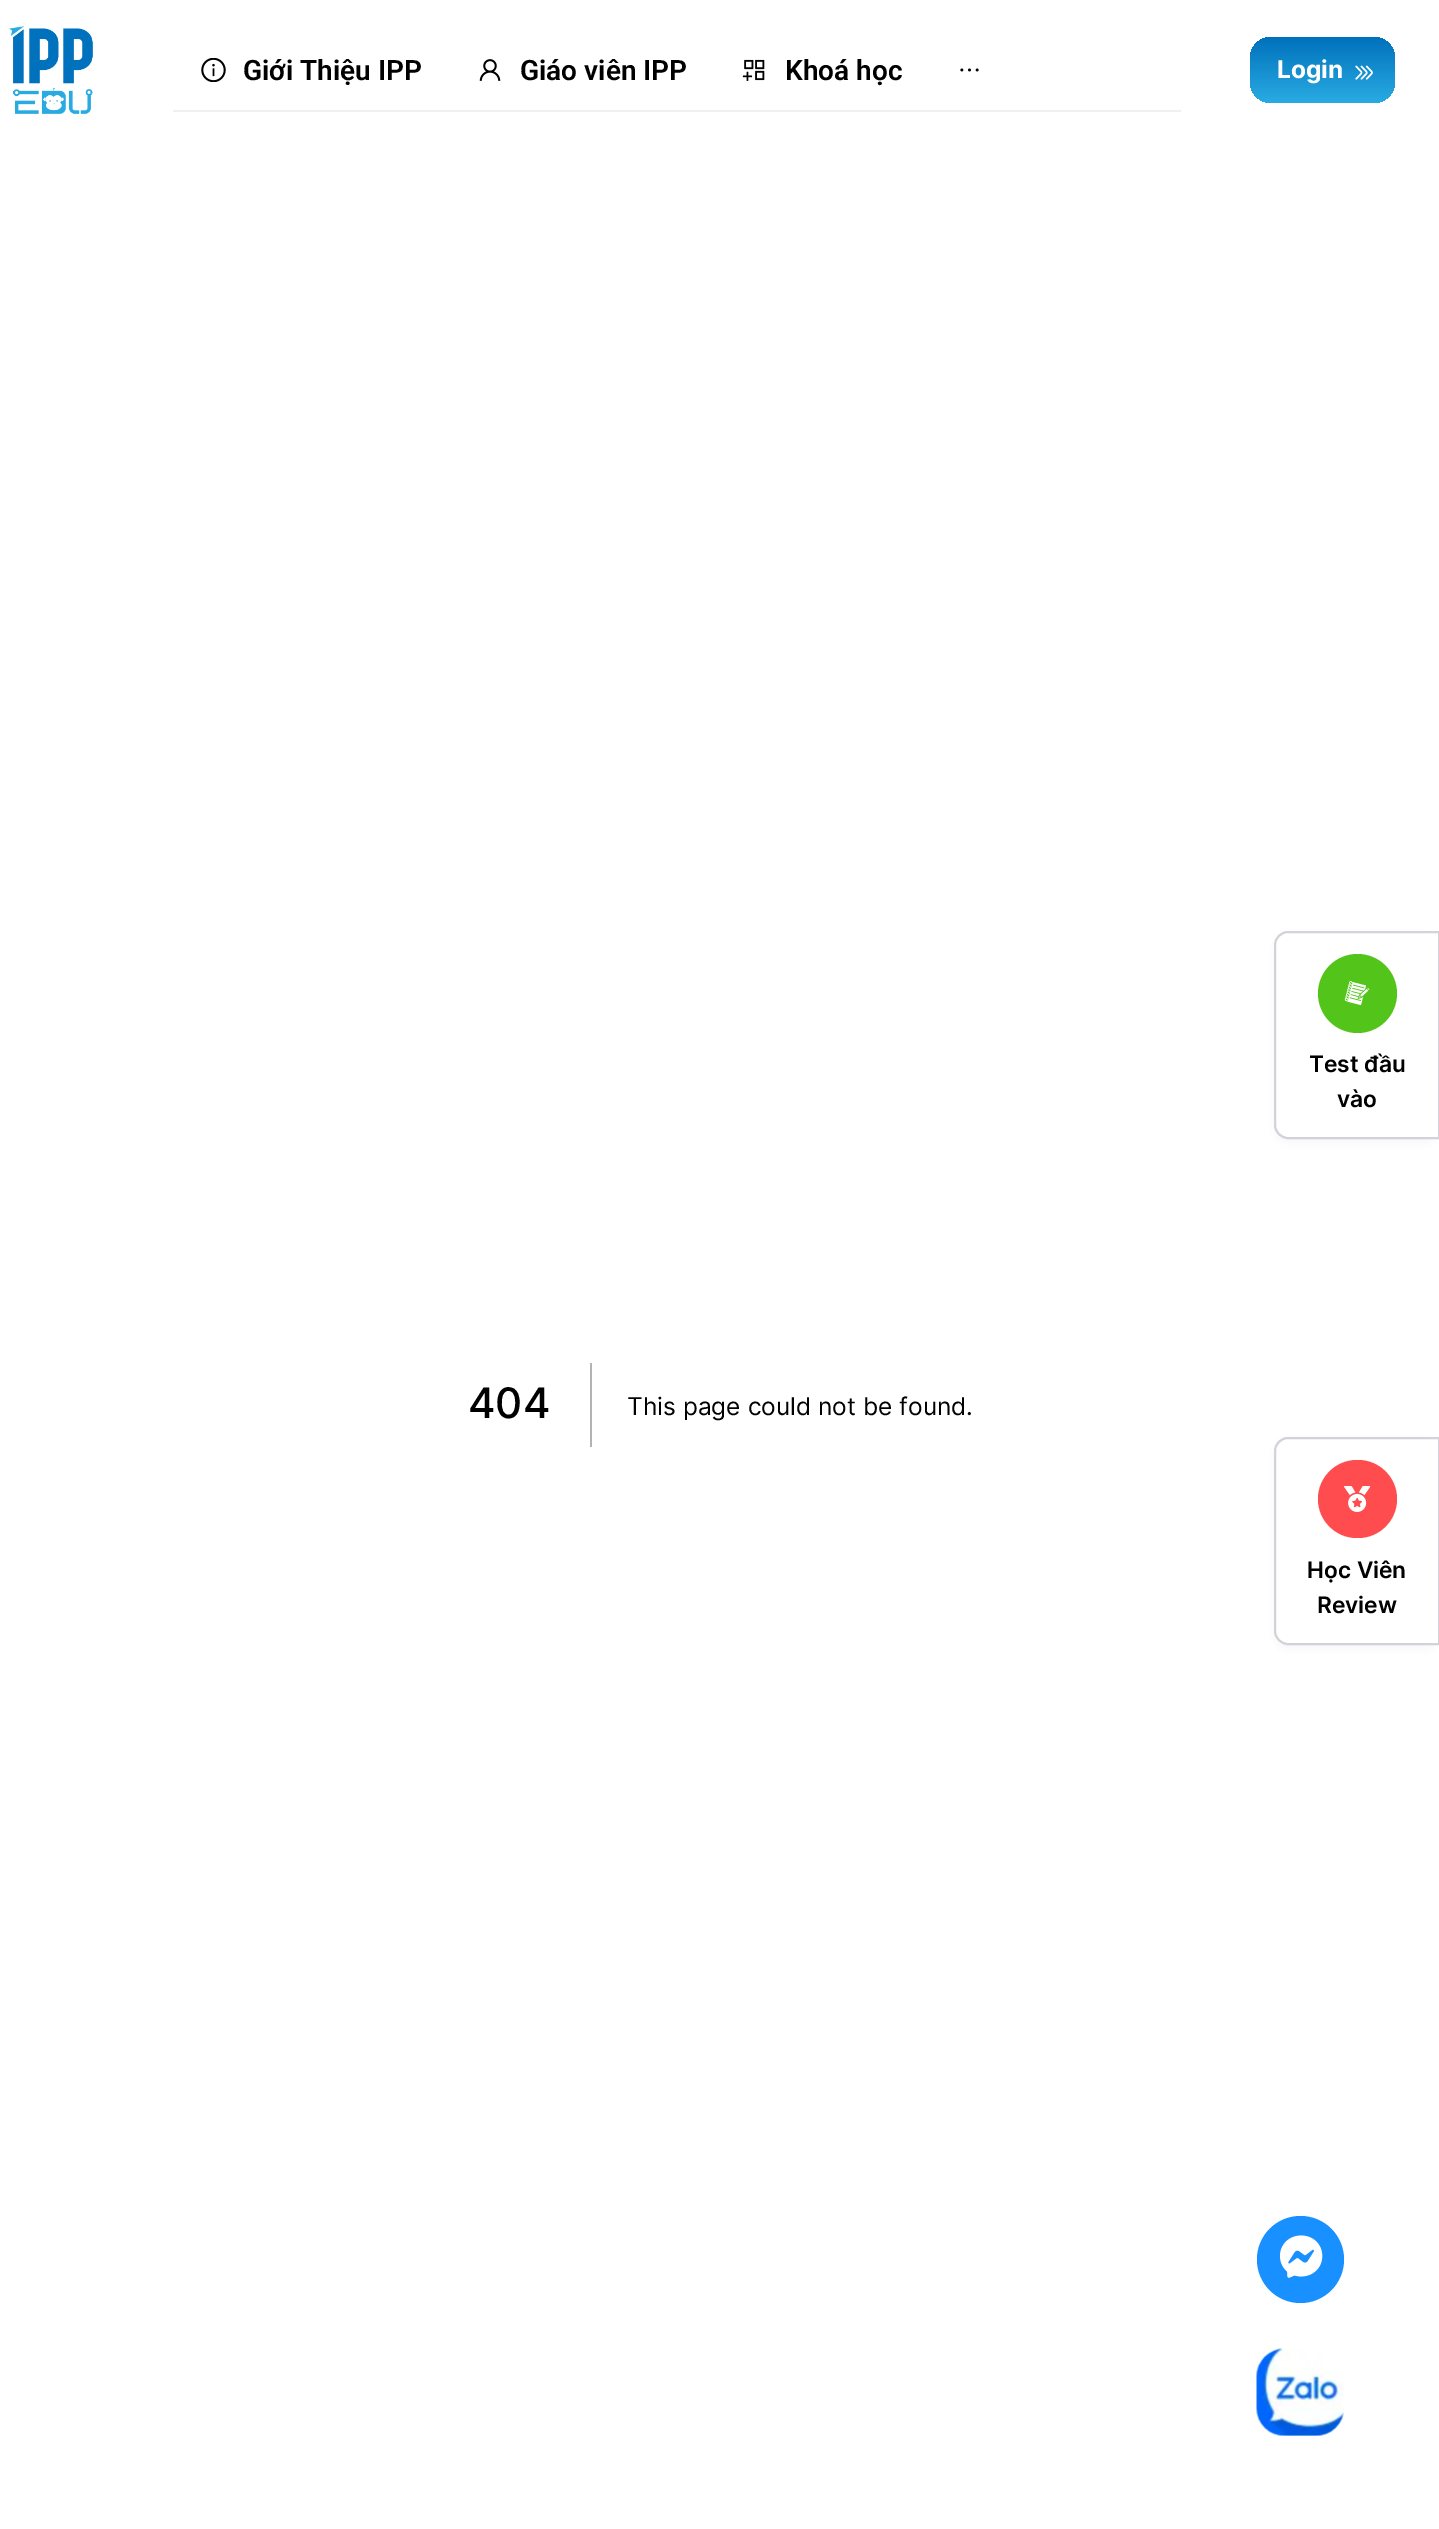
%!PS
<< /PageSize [1439 2529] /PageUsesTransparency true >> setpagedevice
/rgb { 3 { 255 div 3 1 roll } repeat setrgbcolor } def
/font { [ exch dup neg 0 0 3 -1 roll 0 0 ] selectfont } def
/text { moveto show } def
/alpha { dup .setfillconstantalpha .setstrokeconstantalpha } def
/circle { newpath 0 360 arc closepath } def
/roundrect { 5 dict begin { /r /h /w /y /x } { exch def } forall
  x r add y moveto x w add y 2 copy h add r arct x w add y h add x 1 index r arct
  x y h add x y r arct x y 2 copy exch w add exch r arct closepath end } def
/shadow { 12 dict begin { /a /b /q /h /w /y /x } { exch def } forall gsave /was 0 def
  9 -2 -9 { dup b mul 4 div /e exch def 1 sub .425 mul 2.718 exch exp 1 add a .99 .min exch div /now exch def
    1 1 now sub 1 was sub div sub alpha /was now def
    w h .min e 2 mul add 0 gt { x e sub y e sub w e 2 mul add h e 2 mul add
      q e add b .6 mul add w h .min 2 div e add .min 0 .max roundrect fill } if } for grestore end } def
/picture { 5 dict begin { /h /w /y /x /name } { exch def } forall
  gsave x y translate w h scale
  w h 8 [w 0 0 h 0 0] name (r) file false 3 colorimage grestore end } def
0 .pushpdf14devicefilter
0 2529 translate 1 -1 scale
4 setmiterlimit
255 255 255 rgb
0 0 1439 2529 rectfill
(img_01.rgb) 9 26 84 88 picture
240 240 240 rgb
173 110 1008 2 rectfill
(img_02.rgb) 201 58 25 24 picture
(img_03.rgb) 479 59 22 22 picture
(img_04.rgb) 742 59 23 22 picture
(img_05.rgb) 960 68 19 4 picture
gsave 1250 37 145 66 21 roundrect clip newpath
<< /ShadingType 2 /ColorSpace /DeviceRGB /Coords [1322 37 1322 103] /Extend [true true] /Function << /FunctionType 2 /Domain [0 1] /C0 [0 0.443 0.737] /C1 [0.161 0.671 0.886] /N 1 >> >> shfill grestore
(img_06.rgb) 1355 65 18 15 picture
179 179 179 rgb
590 1363 2 84 rectfill
0 0 0 rgb
1274 935 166 208 14 5 0.04 shadow
255 255 255 rgb
1288 932 moveto 151 0 rlineto 0 206 rlineto -151 0 rlineto -7 0 -13 -6 -13 -13 rcurveto 0 -180 rlineto 0 -7 6 -13 13 -13 rcurveto closepath gsave fill grestore
210 211 217 rgb
2 setlinewidth
stroke
82 196 26 rgb
1357.5 993.5 39.5 circle fill
(img_07.rgb) 1344 981 26 25 picture
0 0 0 rgb
1274 1440 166 209 14 5 0.04 shadow
255 255 255 rgb
1288 1438 moveto 151 0 rlineto 0 206 rlineto -151 0 rlineto -7 0 -13 -6 -13 -13 rcurveto 0 -180 rlineto 0 -7 6 -13 13 -13 rcurveto closepath gsave fill grestore
210 211 217 rgb
stroke
255 77 79 rgb
1318 1460 79 78 39 roundrect fill
(img_08.rgb) 1344 1486 26 26 picture
24 144 255 rgb
1300.5 2259.5 43.5 circle fill
(img_09.rgb) 1279 2235 44 43 picture
(img_10.rgb) 1256 2348 88 88 picture
/Roboto-SemiBold 28 font
0 0 0 rgb
(Giới Thiệu IPP) 243 80 text
(Giáo viên IPP) 520 80 text
(Khoá học) 785 80 text
/Inter-Bold 24.5 font
255 255 255 rgb
(Login) 1277 78 text
/Inter-Medium 42 font
0 0 0 rgb
(404) 468 1418 text
/Inter-Regular 24.5 font
(This page could not be found.) 627 1415 text
/Inter-SemiBold 22.75 font
(Test đầu) 1309 1072 text
(vào) 1337 1107 text
(Học Viên) 1307 1578 text
(Review) 1317 1613 text
.poppdf14devicefilter showpage
